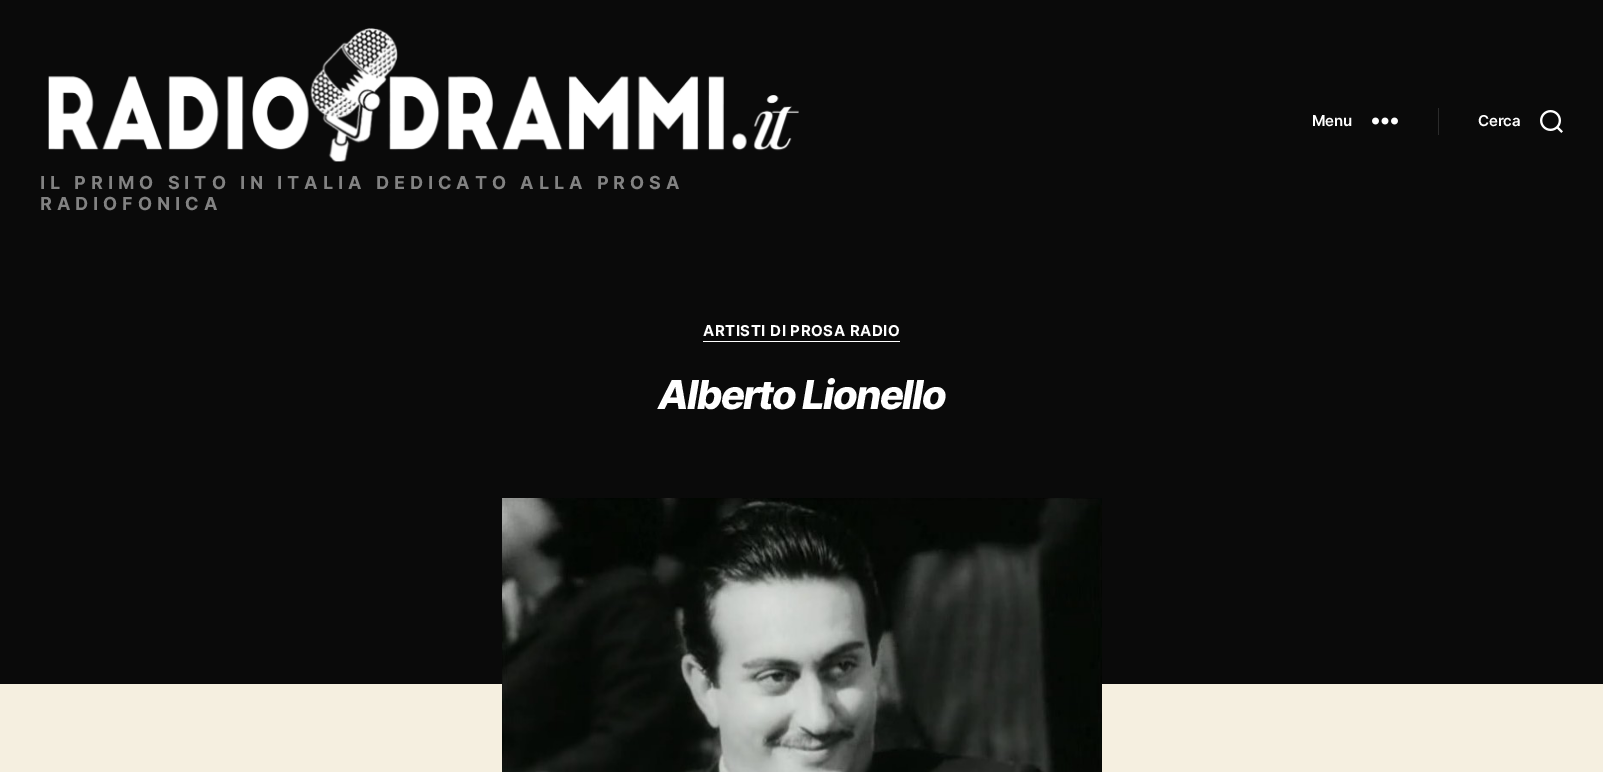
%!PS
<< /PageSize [1603 772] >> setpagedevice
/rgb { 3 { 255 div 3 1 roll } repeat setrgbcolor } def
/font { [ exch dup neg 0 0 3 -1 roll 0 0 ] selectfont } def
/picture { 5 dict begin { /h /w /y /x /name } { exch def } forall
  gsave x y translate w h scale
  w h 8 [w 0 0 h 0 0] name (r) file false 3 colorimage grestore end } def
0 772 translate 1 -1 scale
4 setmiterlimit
245 239 224 rgb
0 0 1603 772 rectfill
10 10 10 rgb
0 0 1603 684 rectfill
(img_01.rgb) 1372 117 26 8 picture
43 43 43 rgb
1438 108 1 27 rectfill
(img_02.rgb) 1540 110 23 23 picture
(img_03.rgb) 48 28 751 134 picture
255 255 255 rgb
703 341 197 1 rectfill
(img_04.rgb) 502 498 600 274 picture
/Inter-SemiBold 15 font
1312 126 moveto -0.25 0 (Menu) ashow
1478 126 moveto -0.25 0 (Cerca) ashow
/Inter-Bold 18 font
130 130 130 rgb
40 189 moveto 5 0 (IL PRIMO SITO IN ITALIA DEDICATO ALLA PROSA) ashow
40 210 moveto 5 0 (RADIOFONICA) ashow
/Inter-Bold 15 font
255 255 255 rgb
703 336 moveto 0.55 0 (ARTISTI DI PROSA RADIO) ashow
/Inter-ExtraBoldItalic 40 font
658 409 moveto -1.7 0 (Alberto Lionello) ashow
showpage
